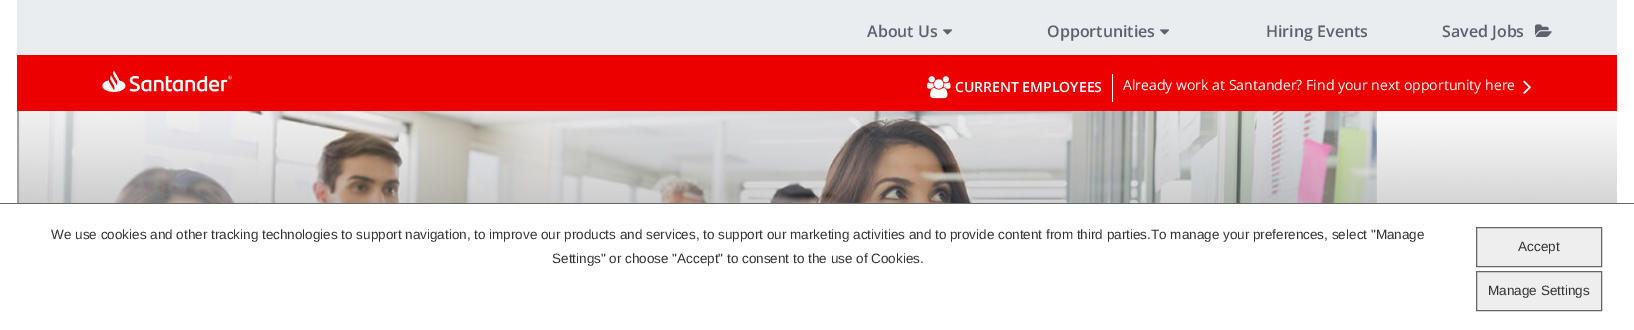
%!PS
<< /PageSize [1634 330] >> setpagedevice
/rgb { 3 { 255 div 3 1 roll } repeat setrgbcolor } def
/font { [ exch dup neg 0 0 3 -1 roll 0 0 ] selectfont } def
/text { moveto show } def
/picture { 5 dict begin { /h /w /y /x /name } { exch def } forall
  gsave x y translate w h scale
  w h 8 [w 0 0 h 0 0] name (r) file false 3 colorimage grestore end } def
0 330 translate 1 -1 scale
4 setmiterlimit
255 255 255 rgb
0 0 1634 330 rectfill
233 237 239 rgb
17 0 1600 55 rectfill
(img_01.rgb) 943 29 9 6 picture
(img_01.rgb) 1160 29 9 6 picture
(img_02.rgb) 1535 24 17 13 picture
236 0 0 rgb
17 55 1600 56 rectfill
(img_03.rgb) 102 70 130 22 picture
255 255 255 rgb
1112 74 1 28 rectfill
(img_04.rgb) 927 76 24 23 picture
(img_05.rgb) 1523 80 8 14 picture
(img_06.rgb) 17 111 1600 92 picture
102 102 102 rgb
0 203 1634 1 rectfill
238 238 238 rgb
1476.5 227.5 moveto 125 0 rlineto 0 39 rlineto -125 0 rlineto closepath gsave fill grestore
102 102 102 rgb
stroke
238 238 238 rgb
1476.5 271.5 moveto 125 0 rlineto 0 39 rlineto -125 0 rlineto closepath gsave fill grestore
102 102 102 rgb
stroke
/OpenSans-SemiBold 16 font
94 96 108 rgb
(About Us) 867 37 text
(Opportunities) 1047 37 text
(Hiring Events) 1266 37 text
(Saved Jobs) 1442 37 text
/OpenSans-SemiBold 14 font
255 255 255 rgb
(CURRENT EMPLOYEES) 955 92 text
/OpenSans-Regular 14.05 font
(Already work at Santander? Find your next opportunity here) 1123 90 text
/LiberationSans-Regular 13.5 font
51 51 51 rgb
(We use cookies and other tracking technologies to support navigation, to improve our products and services, to support our marketing activities and to provide content from third parties.To manage your preferences, select "Manage) 51 239 text
(Settings" or choose "Accept" to consent to the use of Cookies.) 552 263 text
(Accept) 1518 251 text
(Manage Settings) 1488 295 text
showpage
